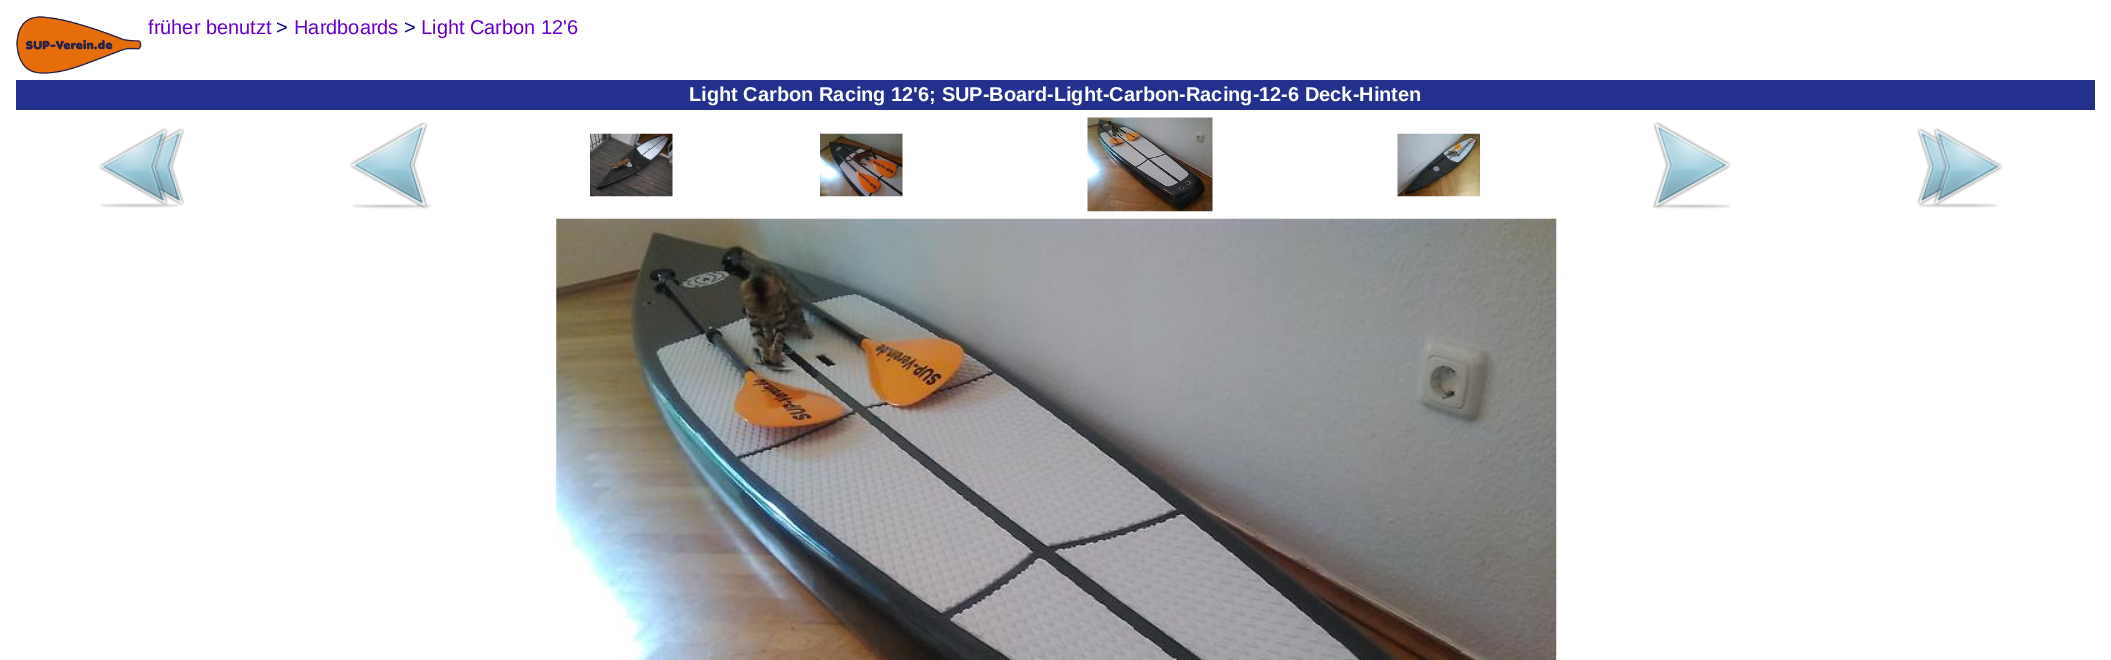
%!PS
<< /PageSize [2111 660] >> setpagedevice
/rgb { 3 { 255 div 3 1 roll } repeat setrgbcolor } def
/font { [ exch dup neg 0 0 3 -1 roll 0 0 ] selectfont } def
/text { moveto show } def
/picture { 5 dict begin { /h /w /y /x /name } { exch def } forall
  gsave x y translate w h scale
  w h 8 [w 0 0 h 0 0] name (r) file false 3 colorimage grestore end } def
0 660 translate 1 -1 scale
4 setmiterlimit
255 255 255 rgb
0 0 2111 660 rectfill
(img_01.rgb) 16 16 126 58 picture
35 48 142 rgb
16 80 2079 30 rectfill
(img_02.rgb) 99 128 85 80 picture
(img_03.rgb) 350 122 81 87 picture
(img_04.rgb) 590 133 83 64 picture
(img_05.rgb) 820 133 83 64 picture
(img_06.rgb) 1087 117 126 95 picture
(img_07.rgb) 1397 133 83 64 picture
(img_08.rgb) 1652 122 79 87 picture
(img_09.rgb) 1917 128 86 80 picture
(img_10.rgb) 556 218 1001 442 picture
/LiberationSans-Regular 20 font
102 0 204 rgb
(früher benutzt) 148 34 text
8 8 117 rgb
(>) 276 34 text
102 0 204 rgb
(Hardboards) 294 34 text
8 8 117 rgb
(>) 404 34 text
102 0 204 rgb
(Light Carbon 12'6) 421 34 text
/LiberationSans-Bold 20 font
255 255 255 rgb
(Light Carbon Racing 12'6; SUP-Board-Light-Carbon-Racing-12-6 Deck-Hinten) 689 101 text
showpage
